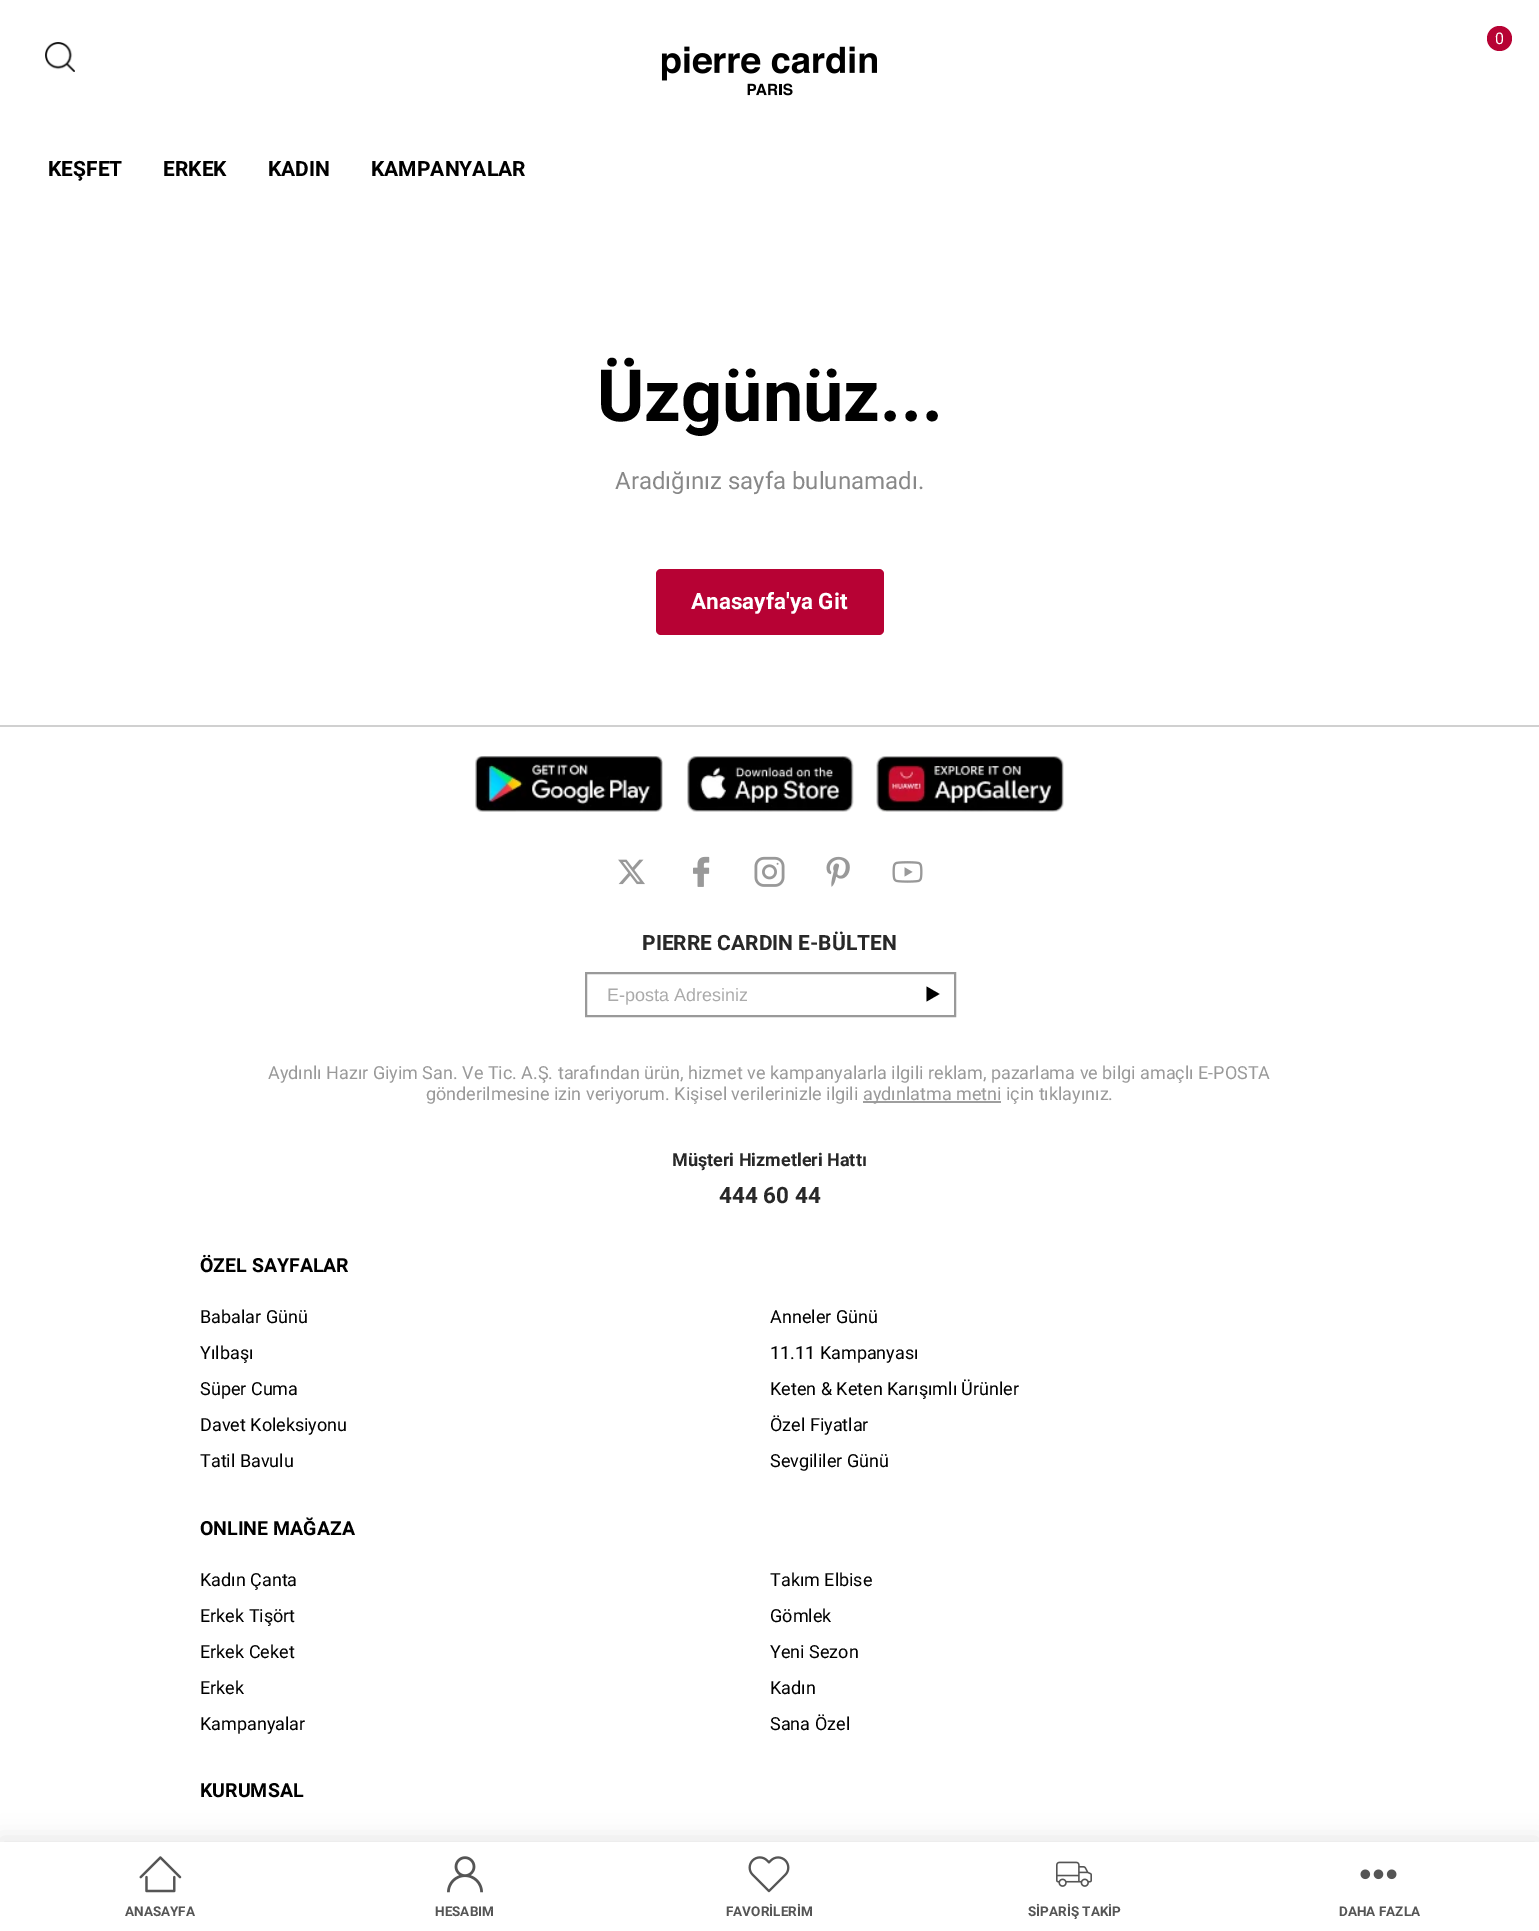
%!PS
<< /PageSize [1539 1931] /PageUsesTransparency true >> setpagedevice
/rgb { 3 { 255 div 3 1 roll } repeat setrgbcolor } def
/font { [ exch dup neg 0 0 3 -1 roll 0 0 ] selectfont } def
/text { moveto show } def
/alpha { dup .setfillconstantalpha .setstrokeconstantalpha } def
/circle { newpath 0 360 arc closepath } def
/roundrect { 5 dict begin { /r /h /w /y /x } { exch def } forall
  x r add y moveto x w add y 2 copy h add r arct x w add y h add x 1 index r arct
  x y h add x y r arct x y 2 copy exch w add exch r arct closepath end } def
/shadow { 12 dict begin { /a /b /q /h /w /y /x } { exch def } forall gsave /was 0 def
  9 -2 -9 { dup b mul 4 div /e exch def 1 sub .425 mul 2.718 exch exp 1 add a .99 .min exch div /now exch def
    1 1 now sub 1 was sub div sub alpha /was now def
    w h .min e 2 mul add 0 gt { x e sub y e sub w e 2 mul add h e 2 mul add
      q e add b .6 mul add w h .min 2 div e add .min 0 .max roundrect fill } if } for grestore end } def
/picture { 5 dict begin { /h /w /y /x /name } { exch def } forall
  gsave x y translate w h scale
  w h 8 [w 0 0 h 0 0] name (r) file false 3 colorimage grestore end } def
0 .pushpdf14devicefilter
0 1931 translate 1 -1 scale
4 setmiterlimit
255 255 255 rgb
0 0 1539 1931 rectfill
183 2 52 rgb
1499.5 38.5 12.5 circle fill
(img_01.rgb) 45 42 30 30 picture
(img_02.rgb) 661 46 216 50 picture
656 569 228 66 5 roundrect fill
208 208 208 rgb
0 725 1539 2 rectfill
(img_03.rgb) 475 756 188 56 picture
(img_04.rgb) 687 756 167 56 picture
(img_05.rgb) 876 756 188 56 picture
(img_06.rgb) 618 859 27 26 picture
(img_07.rgb) 693 856 17 31 picture
(img_08.rgb) 754 856 31 31 picture
(img_09.rgb) 826 856 24 31 picture
(img_10.rgb) 892 861 31 22 picture
153 153 153 rgb
2 setlinewidth
586 973 369 43 rectstroke
0 0 0 rgb
926.5 986.5 moveto 13 7.5 rlineto -13 7.5 rlineto closepath fill
158 158 158 rgb
863 1101 138 2 rectfill
0 0 0 rgb
0 1838 1539 90 0 11 0.1 shadow
255 255 255 rgb
0 1842 1539 89 rectfill
(img_11.rgb) 139 1856 43 37 picture
(img_12.rgb) 447 1856 36 37 picture
(img_13.rgb) 748 1856 42 37 picture
(img_14.rgb) 1056 1861 36 26 picture
(img_15.rgb) 1360 1869 37 11 picture
/Roboto-Regular 16 font
(0) 1495 44 text
/Roboto-Bold 21 font
0 0 0 rgb
(KEŞFET) 48 176 text
(ERKEK) 163 176 text
(KADIN) 268 176 text
(KAMPANYALAR) 371 176 text
/Roboto-Bold 72 font
(Üzgünüz...) 597 421 text
/Roboto-Regular 24 font
136 136 136 rgb
(Aradığınız sayfa bulunamadı.) 615 489 text
/Roboto-Bold 22.5 font
255 255 255 rgb
(Anasayfa'ya Git) 691 609 text
/Roboto-Bold 21 font
40 40 40 rgb
(PIERRE CARDIN E-BÜLTEN) 642 950 text
/LiberationSans-Regular 18 font
170 170 170 rgb
(E-posta Adresiniz) 607 1001 text
/Roboto-Regular 18 font
153 153 153 rgb
(Aydınlı Hazır Giyim San. Ve Tic. A.Ş. tarafından ürün, hizmet ve kampanyalarla ilgili reklam, pazarlama ve bilgi amaçlı E-POSTA) 268 1079 text
(gönderilmesine izin veriyorum. Kişisel verilerinizle ilgili) 426 1100 text
(aydınlatma metni) 863 1100 text
(için tıklayınız.) 1006 1100 text
/Roboto-Bold 18 font
40 40 40 rgb
(Müşteri Hizmetleri Hattı) 672 1166 text
/Roboto-Bold 22.5 font
(444 60 44) 719 1203 text
/Roboto-Bold 19.5 font
0 0 0 rgb
(ÖZEL SAYFALAR) 200 1272 text
/Roboto-Regular 18 font
(Babalar Günü) 200 1323 text
(Anneler Günü) 770 1323 text
(Yılbaşı) 200 1359 text
(11.11 Kampanyası) 770 1359 text
(Süper Cuma) 200 1395 text
(Keten & Keten Karışımlı Ürünler) 770 1395 text
(Davet Koleksiyonu) 200 1431 text
(Özel Fiyatlar) 770 1431 text
(Tatil Bavulu) 200 1467 text
(Sevgililer Günü) 770 1467 text
/Roboto-Bold 19.5 font
(ONLINE MAĞAZA) 200 1535 text
/Roboto-Regular 18 font
(Kadın Çanta) 200 1586 text
(Takım Elbise) 770 1586 text
(Erkek Tişört) 200 1622 text
(Gömlek) 770 1622 text
(Erkek Ceket) 200 1658 text
(Yeni Sezon) 770 1658 text
(Erkek) 200 1694 text
(Kadın) 770 1694 text
(Kampanyalar) 200 1730 text
(Sana Özel) 770 1730 text
/Roboto-Bold 19.5 font
(KURUMSAL) 200 1797 text
/Roboto-Bold 13.5 font
85 85 85 rgb
(ANASAYFA) 125 1916 text
(HESABIM) 435 1916 text
(FAVORİLERİM) 726 1916 text
(SİPARİŞ TAKİP) 1028 1916 text
(DAHA FAZLA) 1339 1916 text
.poppdf14devicefilter showpage
